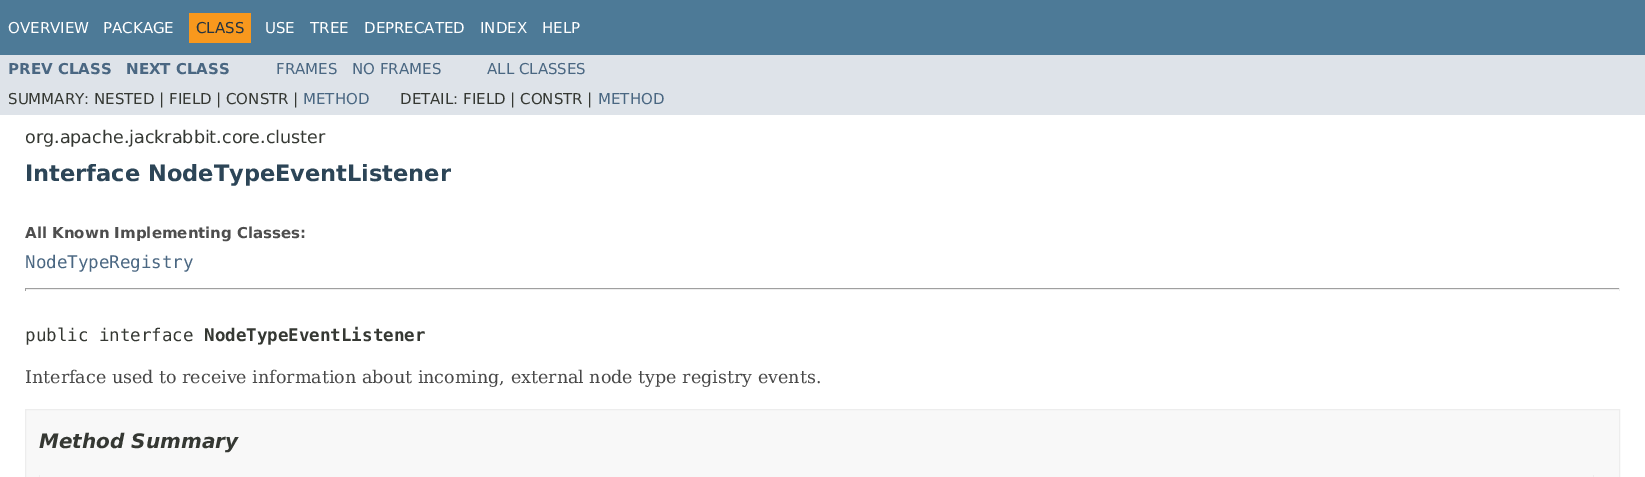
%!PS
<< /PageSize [1645 477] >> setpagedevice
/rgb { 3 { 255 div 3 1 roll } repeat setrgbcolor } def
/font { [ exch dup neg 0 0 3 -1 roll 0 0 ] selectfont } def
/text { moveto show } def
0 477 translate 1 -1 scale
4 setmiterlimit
255 255 255 rgb
0 0 1645 477 rectfill
77 122 151 rgb
0 0 1645 55 rectfill
248 152 29 rgb
189 13 62 30 rectfill
222 227 233 rgb
0 55 1645 60 rectfill
159 159 159 rgb
25 288 1595 1 rectfill
238 238 238 rgb
1619 288 1 3 rectfill
25 289 1595 1 rectfill
159 159 159 rgb
25 288 1 3 rectfill
248 248 248 rgb
25.5 409.5 moveto 1594 0 rlineto 0 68 rlineto -1594 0 rlineto closepath gsave fill grestore
237 237 237 rgb
stroke
238 238 238 rgb
1593 475 1 2 rectfill
39 475 1 2 rectfill
/DejaVuSans-Regular 15 font
255 255 255 rgb
(OVERVIEW) 8 33 text
(PACKAGE) 103 33 text
37 52 65 rgb
(CLASS) 196 33 text
255 255 255 rgb
(USE) 265 33 text
(TREE) 310 33 text
(DEPRECATED) 364 33 text
(INDEX) 480 33 text
(HELP) 542 33 text
/DejaVuSans-Bold 15 font
74 103 130 rgb
(PREV CLASS) 8 74 text
(NEXT CLASS) 126 74 text
/DejaVuSans-Regular 15 font
(FRAMES) 276 74 text
(NO FRAMES) 352 74 text
(ALL CLASSES) 487 74 text
53 56 51 rgb
(SUMMARY: NESTED | FIELD | CONSTR |) 8 104 text
74 103 130 rgb
(METHOD) 303 104 text
53 56 51 rgb
(DETAIL: FIELD | CONSTR |) 400 104 text
74 103 130 rgb
(METHOD) 598 104 text
/DejaVuSans-Regular 17.5 font
53 56 51 rgb
(org.apache.jackrabbit.core.cluster) 25 143 text
/DejaVuSans-Bold 22.5 font
44 69 87 rgb
(Interface NodeTypeEventListener) 25 181 text
/DejaVuSans-Bold 15 font
78 78 78 rgb
(All Known Implementing Classes:) 25 238 text
/DejaVuSansMono-Regular 17.5 font
74 103 130 rgb
(NodeTypeRegistry) 25 268 text
53 56 51 rgb
(public interface) 25 341 text
/DejaVuSansMono-Bold 17.5 font
(NodeTypeEventListener) 204 341 text
/DejaVuSerif-Regular 17.5 font
71 71 71 rgb
(Interface used to receive information about incoming, external node type registry events.) 25 383 text
/DejaVuSans-BoldItalic 20 font
53 56 51 rgb
(Method Summary) 39 448 text
showpage
